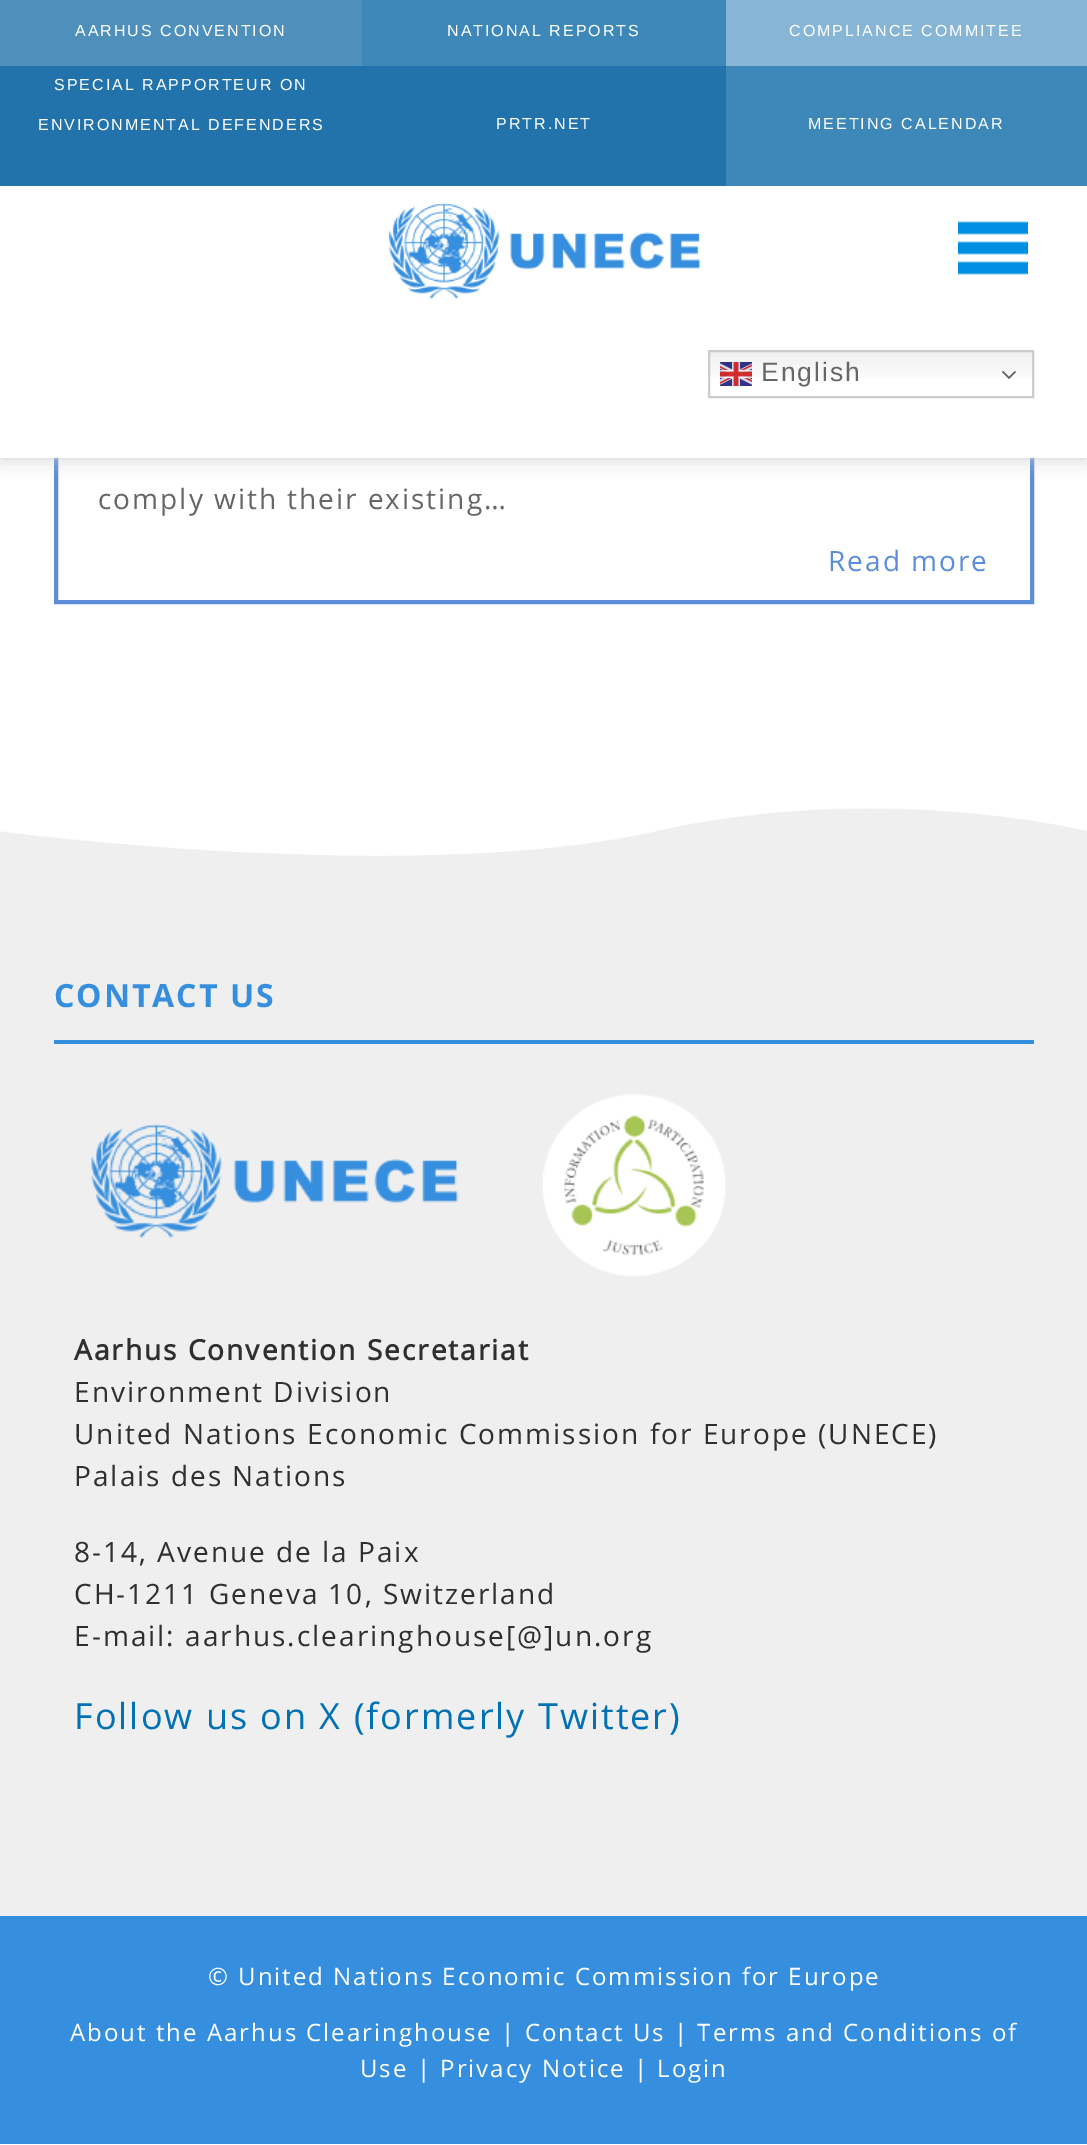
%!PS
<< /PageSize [1087 2145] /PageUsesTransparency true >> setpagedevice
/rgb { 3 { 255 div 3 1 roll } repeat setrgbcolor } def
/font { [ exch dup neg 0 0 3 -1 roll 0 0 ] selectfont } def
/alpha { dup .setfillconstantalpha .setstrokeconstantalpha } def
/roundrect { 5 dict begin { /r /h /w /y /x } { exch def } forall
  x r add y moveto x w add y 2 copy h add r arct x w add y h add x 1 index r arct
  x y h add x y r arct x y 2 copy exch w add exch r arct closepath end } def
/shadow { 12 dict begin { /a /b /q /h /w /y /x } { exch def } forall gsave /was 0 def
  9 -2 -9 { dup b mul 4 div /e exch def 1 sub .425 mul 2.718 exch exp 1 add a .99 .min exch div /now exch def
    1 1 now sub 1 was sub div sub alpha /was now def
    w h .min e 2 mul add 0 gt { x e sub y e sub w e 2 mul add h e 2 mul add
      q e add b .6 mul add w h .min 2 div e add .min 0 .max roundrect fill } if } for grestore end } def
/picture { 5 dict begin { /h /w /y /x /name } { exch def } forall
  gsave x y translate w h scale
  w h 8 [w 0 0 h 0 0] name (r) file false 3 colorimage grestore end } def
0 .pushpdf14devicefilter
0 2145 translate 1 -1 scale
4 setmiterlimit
255 255 255 rgb
0 0 1087 2145 rectfill
91 141 218 rgb
4 setlinewidth
56 152 976 450 rectstroke
204 204 204 rgb
0 0 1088 458 0 10 1 shadow
255 255 255 rgb
0 186 1087 272 rectfill
78 143 188 rgb
0 0 362 66 rectfill
61 136 185 rgb
362 0 364 66 rectfill
134 181 214 rgb
726 0 361 66 rectfill
34 115 171 rgb
0 66 726 120 rectfill
61 136 185 rgb
726 66 361 120 rectfill
(img_01.rgb) 388 202 313 97 picture
(img_02.rgb) 958 221 70 54 picture
gsave 710 352 moveto 322 0 rlineto 0 26 rlineto -322 0 rlineto closepath clip newpath
<< /ShadingType 2 /ColorSpace /DeviceRGB /Coords [871 350 871 398] /Extend [true true] /Function << /FunctionType 3 /Domain [0 1] /Functions [<< /FunctionType 2 /Domain [0 1] /C0 [0.937 0.937 0.937] /C1 [1 1 1] /N 1 >> << /FunctionType 2 /Domain [0 1] /C0 [1 1 1] /C1 [1 1 1] /N 1 >>] /Bounds [0.7] /Encode [0 1 0 1] >> >> shfill grestore
204 204 204 rgb
2 setlinewidth
709 351 324 46 rectstroke
(img_03.rgb) 720 362 32 24 picture
(img_04.rgb) 1002 371 14 8 picture
(img_05.rgb) 0 808 1087 84 picture
239 239 239 rgb
0 892 1087 1024 rectfill
54 142 222 rgb
54 1040 980 4 rectfill
(img_06.rgb) 91 1123 368 115 picture
(img_07.rgb) 542 1094 184 183 picture
0 1916 1087 228 rectfill
/LiberationSans-Regular 16 font
255 255 255 rgb
75 36 moveto 2 0 (AARHUS CONVENTION) ashow
447 36 moveto 2 0 (NATIONAL REPORTS) ashow
789 36 moveto 2 0 (COMPLIANCE COMMITEE) ashow
54 90 moveto 2 0 (SPECIAL RAPPORTEUR ON) ashow
38 130 moveto 2 0 (ENVIRONMENTAL DEFENDERS) ashow
496 129 moveto 2 0 (PRTR.NET) ashow
808 129 moveto 2 0 (MEETING CALENDAR) ashow
/LiberationSans-Regular 26.5 font
102 102 102 rgb
761 381 moveto 2 0 (English) ashow
/OpenSans-Regular 28 font
98 509 moveto 2 0 (comply with their existing…) ashow
91 141 218 rgb
828 571 moveto 2 0 (Read more) ashow
/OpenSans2-Bold 32 font
54 142 222 rgb
54 1007 moveto 2 0 (CONTACT US) ashow
/OpenSans-Bold 28 font
47 47 47 rgb
74 1360 moveto 2 0 (Aarhus Convention Secretariat) ashow
/OpenSans-Regular 28 font
74 1402 moveto 2 0 (Environment Division) ashow
74 1444 moveto 2 0 (United Nations Economic Commission for Europe \(UNECE\)) ashow
74 1486 moveto 2 0 (Palais des Nations) ashow
74 1562 moveto 2 0 (8-14, Avenue de la Paix) ashow
74 1604 moveto 2 0 (CH-1211 Geneva 10, Switzerland) ashow
74 1646 moveto 2 0 (E-mail: aarhus.clearinghouse[@]un.org) ashow
/OpenSans-Regular 36 font
0 113 179 rgb
74 1729 moveto 2 0 (Follow us on X \(formerly Twitter\)) ashow
/OpenSans-Regular 24 font
255 255 255 rgb
208 1985 moveto 2 0 (© United Nations Economic Commission for Europe) ashow
70 2041 moveto 2 0 (About the Aarhus Clearinghouse | Contact Us | Terms and Conditions of) ashow
360 2077 moveto 2 0 (Use | Privacy Notice | Login) ashow
.poppdf14devicefilter showpage
